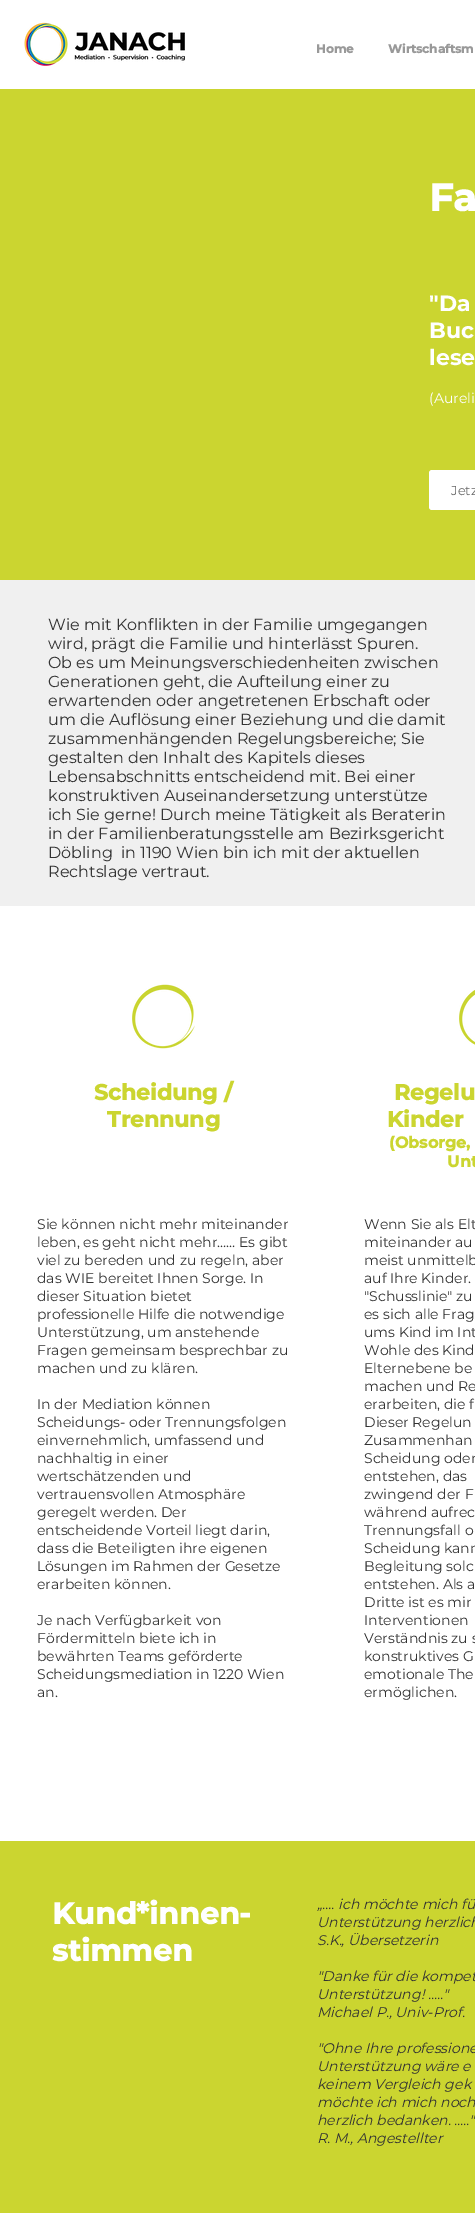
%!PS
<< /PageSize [475 2213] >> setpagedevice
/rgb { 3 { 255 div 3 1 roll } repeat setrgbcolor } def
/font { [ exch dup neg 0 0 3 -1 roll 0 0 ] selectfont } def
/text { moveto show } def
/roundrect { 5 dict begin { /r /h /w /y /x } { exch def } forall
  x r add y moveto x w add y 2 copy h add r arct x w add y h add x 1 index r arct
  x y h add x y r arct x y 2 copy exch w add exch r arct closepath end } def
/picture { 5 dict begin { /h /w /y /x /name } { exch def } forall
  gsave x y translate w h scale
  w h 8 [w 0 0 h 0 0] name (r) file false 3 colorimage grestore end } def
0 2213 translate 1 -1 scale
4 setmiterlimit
255 255 255 rgb
0 0 475 2213 rectfill
(img_01.rgb) 24 22 161 44 picture
203 213 48 rgb
0 89 475 491 rectfill
255 255 255 rgb
429 470 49 40 3 roundrect fill
240 240 240 rgb
0 580 475 326 rectfill
(img_02.rgb) 132 984 63 65 picture
(img_03.rgb) 459 990 16 55 picture
203 213 48 rgb
0 1841 475 372 rectfill
/Montserrat-Bold 12 font
153 153 153 rgb
(Home) 316 53 text
(Wirtschaftsm) 388 53 text
/Montserrat-Bold 38 font
255 255 255 rgb
(Fa) 429 211 text
/Montserrat-Thin 22 font
("Da) 429 311 text
(Buc) 429 338 text
(lese) 429 365 text
/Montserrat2-Thin 14 font
(\(Aureli) 429 403 text
/Montserrat2-Thin 13 font
102 102 102 rgb
(Jetz) 451 495 text
/Montserrat2-Thin 16 font
51 51 51 rgb
(Wie mit Konflikten in der Familie umgegangen) 48 630 text
(wird, prägt die Familie und hinterlässt Spuren.) 48 649 text
(Ob es um Meinungsverschiedenheiten zwischen) 48 668 text
(Generationen geht, die Aufteilung einer zu) 48 687 text
(erwartenden oder angetretenen Erbschaft oder) 48 706 text
(um die Auflösung einer Beziehung und die damit) 48 725 text
(zusammenhängenden Regelungsbereiche; Sie) 48 744 text
(gestalten den Inhalt des Kapitels dieses) 48 763 text
(Lebensabschnitts entscheidend mit. Bei einer) 48 782 text
(konstruktiven Auseinandersetzung unterstütze) 48 801 text
(ich Sie gerne! Durch meine Tätigkeit als Beraterin) 48 820 text
(in der Familienberatungsstelle am Bezirksgericht) 48 839 text
(Döbling  in 1190 Wien bin ich mit der aktuellen) 48 858 text
(Rechtslage vertraut.) 48 877 text
/Montserrat-Bold 22 font
203 213 48 rgb
(Scheidung /) 94 1100 text
(Trennung) 107 1127 text
/Montserrat2-Thin 14 font
51 51 51 rgb
(Sie können nicht mehr miteinander) 37 1229 text
(leben, es geht nicht mehr…… Es gibt) 37 1247 text
(viel zu bereden und zu regeln, aber) 37 1265 text
(das WIE bereitet Ihnen Sorge. In) 37 1283 text
(dieser Situation bietet) 37 1301 text
(professionelle Hilfe die notwendige) 37 1319 text
(Unterstützung, um anstehende) 37 1337 text
(Fragen gemeinsam besprechbar zu) 37 1355 text
(machen und zu klären.) 37 1373 text
(In der Mediation können) 37 1409 text
(Scheidungs- oder Trennungsfolgen) 37 1427 text
(einvernehmlich, umfassend und) 37 1445 text
(nachhaltig in einer) 37 1463 text
(wertschätzenden und) 37 1481 text
(vertrauensvollen Atmosphäre) 37 1499 text
(geregelt werden. Der) 37 1517 text
(entscheidende Vorteil liegt darin,) 37 1535 text
(dass die Beteiligten ihre eigenen) 37 1553 text
(Lösungen im Rahmen der Gesetze) 37 1571 text
(erarbeiten können.) 37 1589 text
(Je nach Verfügbarkeit von) 37 1625 text
(Fördermitteln biete ich in) 37 1643 text
(bewährten Teams geförderte) 37 1661 text
(Scheidungsmediation in 1220 Wien) 37 1679 text
(an.) 37 1697 text
/Montserrat-Bold 22 font
203 213 48 rgb
(Regelu) 394 1100 text
(Kinder) 387 1127 text
/Montserrat-Bold 16 font
(\(Obsorge,) 389 1148 text
(Unt) 447 1167 text
/Montserrat2-Thin 14 font
51 51 51 rgb
(Wenn Sie als Elt) 364 1229 text
(miteinander au) 364 1247 text
(meist unmittelb) 364 1265 text
(auf Ihre Kinder.) 364 1283 text
("Schusslinie" zu) 364 1301 text
(es sich alle Frag) 364 1319 text
(ums Kind im Int) 364 1337 text
(Wohle des Kind) 364 1355 text
(Elternebene be) 364 1373 text
(machen und Re) 364 1391 text
(erarbeiten, die f) 364 1409 text
(Dieser Regelun) 364 1427 text
(Zusammenhan) 364 1445 text
(Scheidung oder) 364 1463 text
(entstehen, das) 364 1481 text
(zwingend der F) 364 1499 text
(während aufrec) 364 1517 text
(Trennungsfall o) 364 1535 text
(Scheidung kann) 364 1553 text
(Begleitung solc) 364 1571 text
(entstehen. Als a) 364 1589 text
(Dritte ist es mir) 364 1607 text
(Interventionen) 364 1625 text
(Verständnis zu s) 364 1643 text
(konstruktives G) 364 1661 text
(emotionale The) 364 1679 text
(ermöglichen.) 364 1697 text
/Montserrat-Bold 30 font
255 255 255 rgb
(Kund*innen-) 52 1924 text
(stimmen) 52 1961 text
/Montserrat-ThinItalic 14 font
51 51 51 rgb
(„…. ich möchte mich fü) 317 1909 text
(Unterstützung herzlich) 317 1927 text
(S.K., Übersetzerin) 317 1945 text
("Danke für die kompet) 317 1981 text
(Unterstützung! .....") 317 1999 text
(Michael P., Univ-Prof.) 317 2017 text
("Ohne Ihre professione) 317 2053 text
(Unterstützung wäre e) 317 2071 text
(keinem Vergleich gek) 317 2089 text
(möchte ich mich noch) 317 2107 text
(herzlich bedanken. .....") 317 2125 text
(R. M., Angestellter) 317 2143 text
showpage
